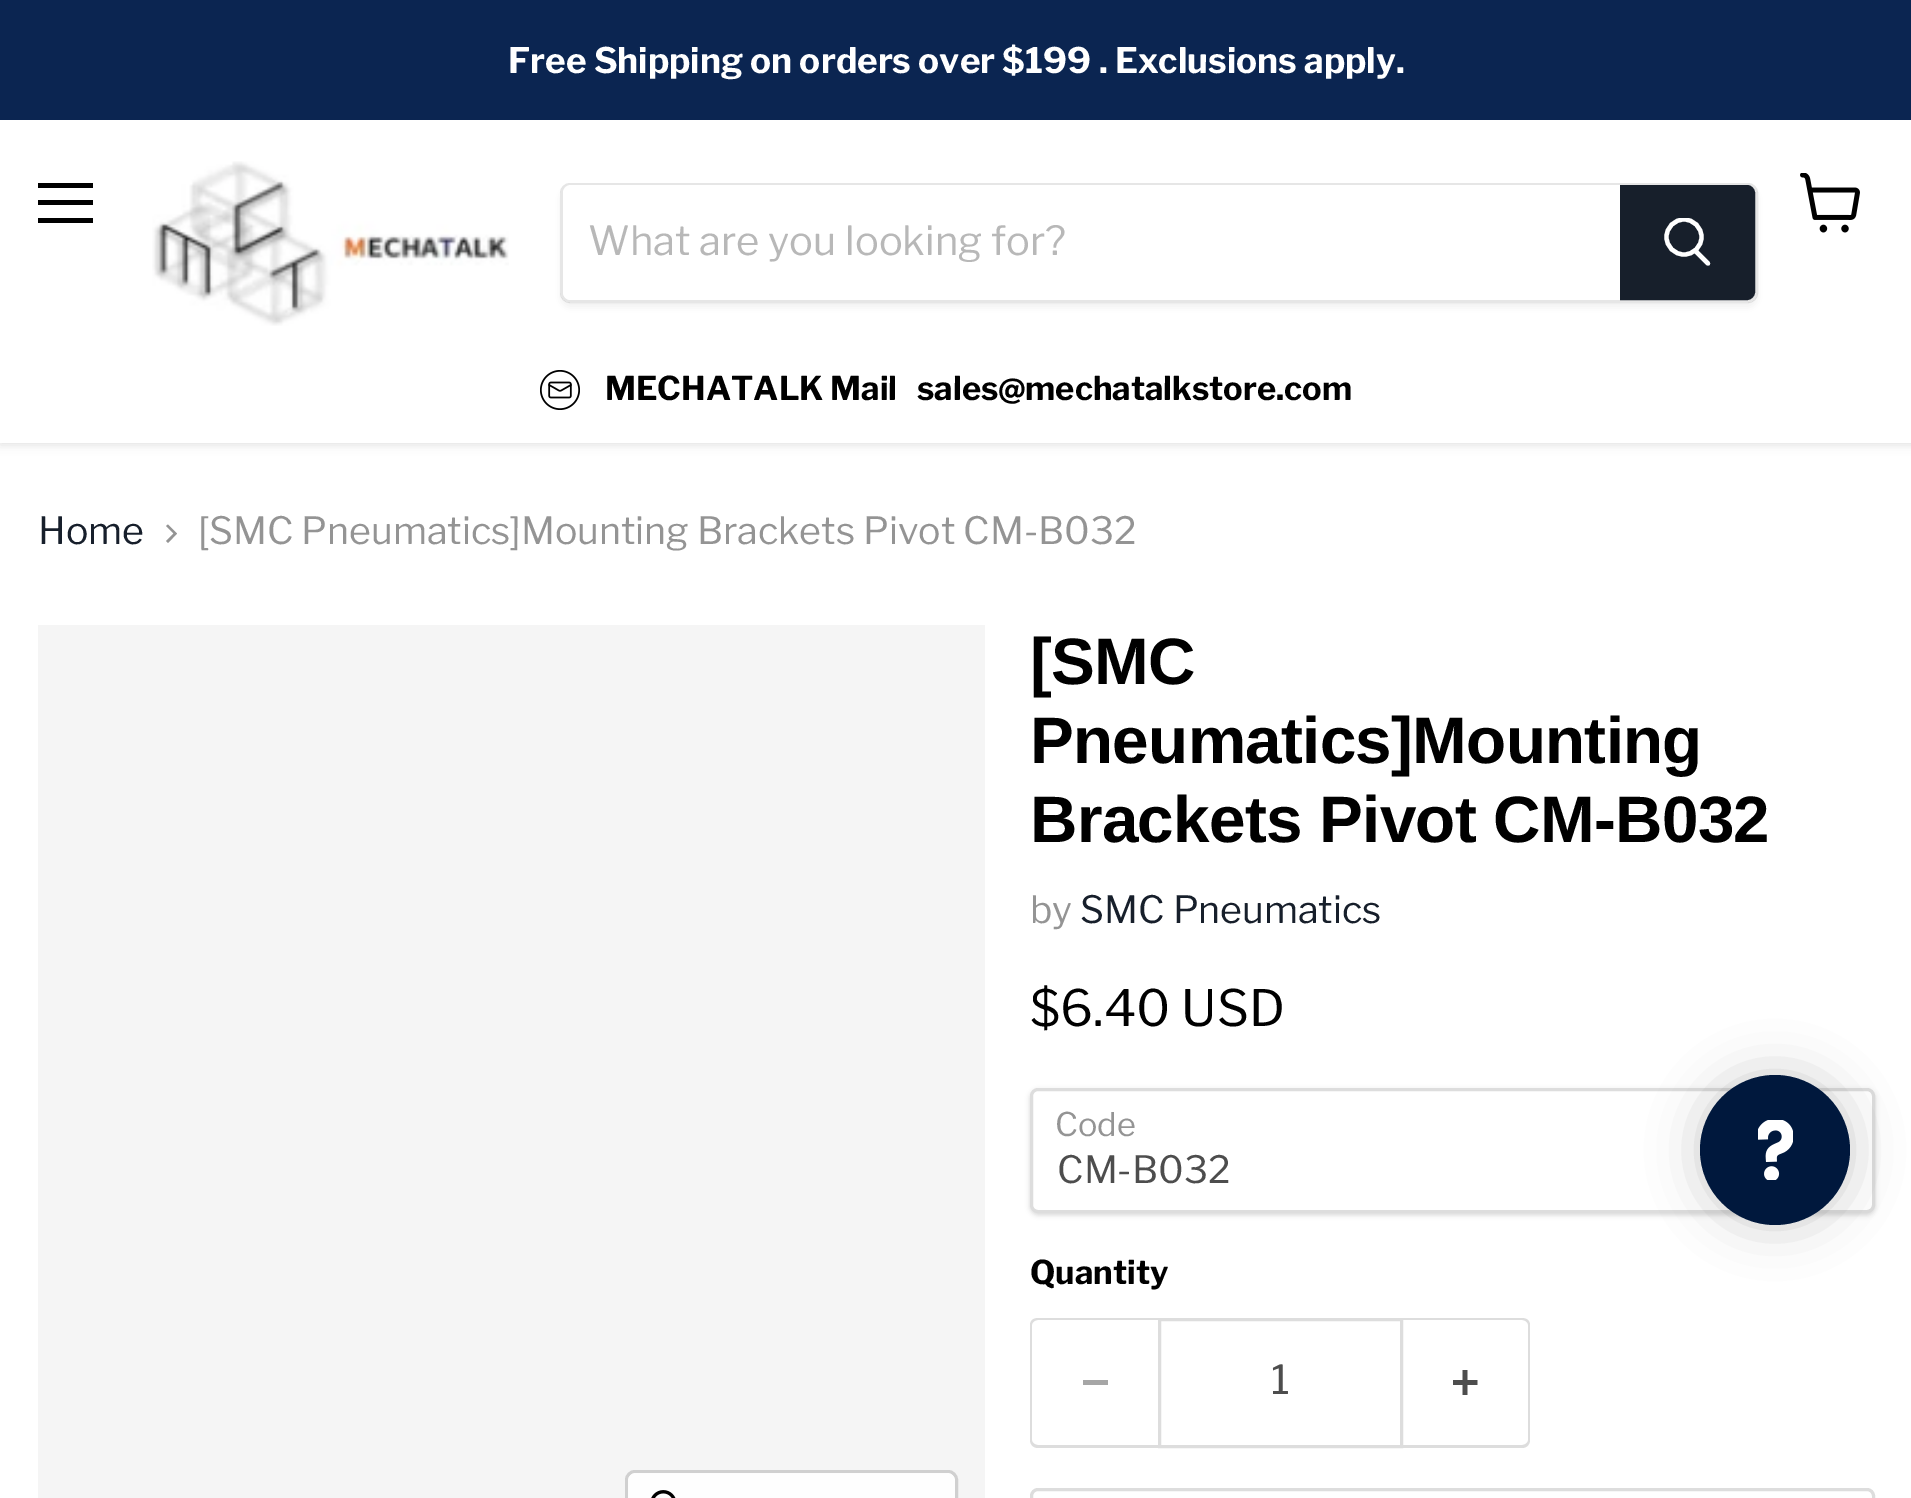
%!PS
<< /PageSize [1911 1498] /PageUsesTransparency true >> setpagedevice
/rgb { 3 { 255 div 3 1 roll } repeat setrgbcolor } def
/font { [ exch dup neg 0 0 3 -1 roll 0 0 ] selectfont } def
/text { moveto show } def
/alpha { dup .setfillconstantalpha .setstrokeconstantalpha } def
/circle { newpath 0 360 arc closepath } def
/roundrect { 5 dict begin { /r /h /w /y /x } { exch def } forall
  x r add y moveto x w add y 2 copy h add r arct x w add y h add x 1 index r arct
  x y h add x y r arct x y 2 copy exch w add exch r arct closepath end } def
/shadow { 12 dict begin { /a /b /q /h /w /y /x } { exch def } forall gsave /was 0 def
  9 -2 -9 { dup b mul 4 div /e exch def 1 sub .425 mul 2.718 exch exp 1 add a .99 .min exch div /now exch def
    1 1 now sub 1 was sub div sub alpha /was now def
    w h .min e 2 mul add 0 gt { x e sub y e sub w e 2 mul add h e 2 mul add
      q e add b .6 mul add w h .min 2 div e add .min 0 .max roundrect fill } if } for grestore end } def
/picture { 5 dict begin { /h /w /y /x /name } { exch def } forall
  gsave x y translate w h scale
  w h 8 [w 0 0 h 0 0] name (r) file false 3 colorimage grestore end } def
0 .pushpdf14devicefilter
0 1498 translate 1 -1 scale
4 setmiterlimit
255 255 255 rgb
0 0 1911 1498 rectfill
128 128 128 rgb
0 123 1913 322 0 5 0.25 shadow
11 37 81 rgb
0 0 1911 120 rectfill
255 255 255 rgb
0 120 1911 323 rectfill
0 0 0 rgb
38 183 55 5 rectfill
38 200 55 5 rectfill
38 218 55 5 rectfill
(img_01.rgb) 1800 173 60 60 picture
(img_02.rgb) 152 161 357 165 picture
gsave
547 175 moveto 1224 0 rlineto 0 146 rlineto -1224 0 rlineto closepath 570 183 moveto 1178 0 rlineto 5.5 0 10 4.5 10 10 rcurveto 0 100 rlineto 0 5.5 -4.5 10 -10 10 rcurveto -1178 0 rlineto -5.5 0 -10 -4.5 -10 -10 rcurveto 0 -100 rlineto 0 -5.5 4.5 -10 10 -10 rcurveto closepath eoclip newpath
128 128 128 rgb
560 188 1198 120 10 4 0.11 shadow
grestore
0.2 alpha
128 128 128 rgb
3 setlinewidth
561.5 184.5 1195 117 8.5 roundrect stroke
1 alpha
255 255 255 rgb
571 185 moveto 1049 0 rlineto 0 115 rlineto -1049 0 rlineto -4.5 0 -8 -3.5 -8 -8 rcurveto 0 -99 rlineto 0 -4.5 3.5 -8 8 -8 rcurveto closepath fill
23 31 43 rgb
1621.5 186.5 moveto 125.5 0 rlineto 3.5 0 6.5 3 6.5 6.5 rcurveto 0 99 rlineto 0 3.5 -3 6.5 -6.5 6.5 rcurveto -125.5 0 rlineto closepath gsave fill grestore
stroke
255 255 255 rgb
4.3 setlinewidth
1 setlinecap
1708 263.5 moveto -12 -12 rlineto stroke
gsave
1663 218 50 52 rectclip
0 setlinecap
1684 237 17.5 circle stroke
grestore
(img_03.rgb) 540 370 40 40 picture
148 148 148 rgb
166 541 moveto 2 2 rlineto 9 -9.5 rlineto -9 -9 rlineto -2 1.5 rlineto 7.5 7.5 rlineto closepath eofill
245 245 245 rgb
38 625 947 873 rectfill
208 208 208 rgb
3 setlinewidth
0 setlinecap
626.5 1471.5 330 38 8.5 roundrect stroke
0.9 alpha
255 255 255 rgb
628 1473 327 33 8 roundrect fill
1 alpha
(img_04.rgb) 651 1490 25 8 picture
0 0 0 rgb
1030 1090 845 125 8 2.5 0.15 shadow
255 255 255 rgb
1031.5 1089.5 842 122 6.5 roundrect gsave fill grestore
221 221 221 rgb
stroke
77 77 77 rgb
3.1 setlinewidth
2 setlinecap
1840 1154 moveto 7.5 -8 rlineto stroke
221 221 221 rgb
1038 1318 moveto 120 0 rlineto 0 130 rlineto -120 0 rlineto -5 0 -8 -4 -8 -8 rcurveto 0 -115 rlineto 0 -4 3 -7 8 -7 rcurveto closepath 1038 1320 moveto 120 0 rlineto 0 125 rlineto -120 0 rlineto -3 0 -6 -2 -6 -5 rcurveto 0 -115 rlineto 0 -3 3 -5 6 -5 rcurveto closepath eofill
166 166 166 rgb
1083 1380 25 5 rectfill
221 221 221 rgb
3 setlinewidth
0 setlinecap
1159.5 1319.5 242 127 rectstroke
1402 1318 moveto 120 0 rlineto 5 0 8 3 8 7 rcurveto 0 115 rlineto 0 4 -3 8 -8 8 rcurveto -120 0 rlineto closepath 1402 1320 moveto 120 0 rlineto 3 0 6 2 6 5 rcurveto 0 115 rlineto 0 3 -3 5 -6 5 rcurveto -120 0 rlineto closepath eofill
(img_05.rgb) 1453 1370 25 25 picture
1031.5 1489.5 842 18 6.5 roundrect stroke
0 0 0 rgb
1700 1075 150 150 75 25 0.2 shadow
0 24 61 rgb
1775 1150 75 circle fill
(img_06.rgb) 1758 1120 35 60 picture
/LibreFranklin-Bold 35.15 font
255 255 255 rgb
(Free Shipping on orders over $199 . Exclusions apply.) 508 73 text
/LibreFranklin-Regular 40 font
184 184 184 rgb
(What are you looking for?) 588 255 text
/LibreFranklin-Bold 32.75 font
0 0 0 rgb
(MECHATALK Mail) 605 400 text
(sales@mechatalkstore.com) 917 400 text
/LibreFranklin-Regular 37.5 font
23 31 43 rgb
(Home) 38 544 text
148 148 148 rgb
([SMC Pneumatics]Mounting Brackets Pivot CM-B032) 198 544 text
/Arimo-Bold 65.6 font
0 0 0 rgb
1030 684 moveto -0.7 0 ([SMC) ashow
1030 763 moveto -0.7 0 (Pneumatics]Mounting) ashow
1030 842 moveto -0.7 0 (Brackets Pivot CM-B032) ashow
/LibreFranklin-Regular 37.5 font
148 148 148 rgb
(by) 1030 923 text
23 31 43 rgb
(SMC Pneumatics) 1080 923 text
/LibreFranklin-Regular 50 font
0 0 0 rgb
($6.40 USD) 1030 1026 text
/LibreFranklin-Regular 32.5 font
148 148 148 rgb
(Code) 1055 1136 text
/LibreFranklin-Regular 37.5 font
77 77 77 rgb
(CM-B032) 1057 1183 text
/LibreFranklin-Bold 32.75 font
0 0 0 rgb
(Quantity) 1030 1284 text
/LibreFranklin-Regular 40 font
77 77 77 rgb
(1) 1271 1394 text
.poppdf14devicefilter showpage
